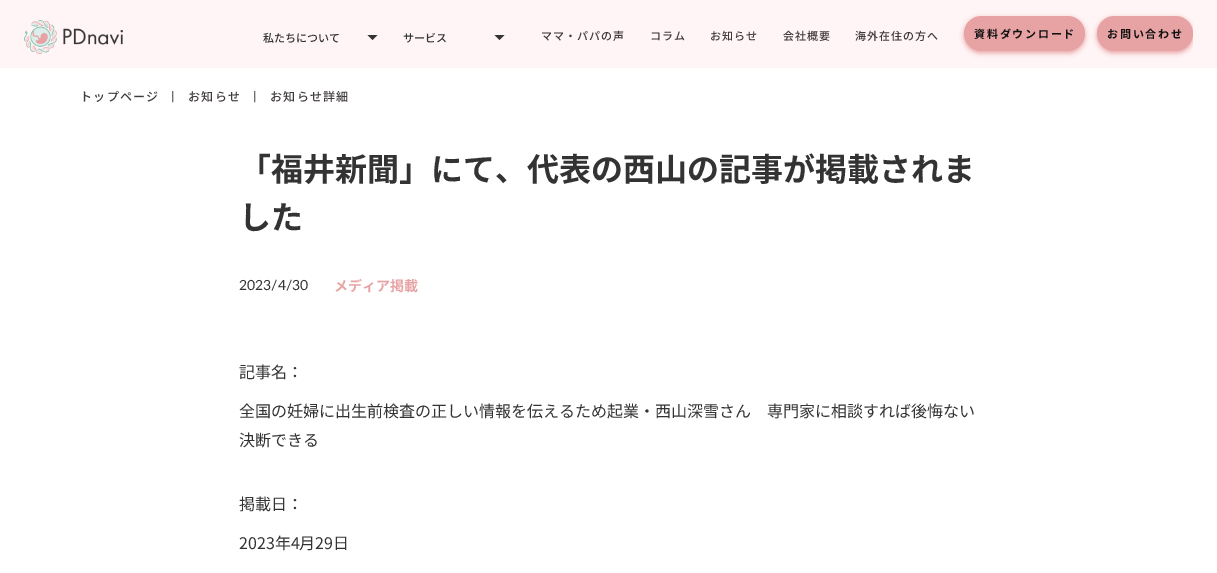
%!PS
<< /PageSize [1217 573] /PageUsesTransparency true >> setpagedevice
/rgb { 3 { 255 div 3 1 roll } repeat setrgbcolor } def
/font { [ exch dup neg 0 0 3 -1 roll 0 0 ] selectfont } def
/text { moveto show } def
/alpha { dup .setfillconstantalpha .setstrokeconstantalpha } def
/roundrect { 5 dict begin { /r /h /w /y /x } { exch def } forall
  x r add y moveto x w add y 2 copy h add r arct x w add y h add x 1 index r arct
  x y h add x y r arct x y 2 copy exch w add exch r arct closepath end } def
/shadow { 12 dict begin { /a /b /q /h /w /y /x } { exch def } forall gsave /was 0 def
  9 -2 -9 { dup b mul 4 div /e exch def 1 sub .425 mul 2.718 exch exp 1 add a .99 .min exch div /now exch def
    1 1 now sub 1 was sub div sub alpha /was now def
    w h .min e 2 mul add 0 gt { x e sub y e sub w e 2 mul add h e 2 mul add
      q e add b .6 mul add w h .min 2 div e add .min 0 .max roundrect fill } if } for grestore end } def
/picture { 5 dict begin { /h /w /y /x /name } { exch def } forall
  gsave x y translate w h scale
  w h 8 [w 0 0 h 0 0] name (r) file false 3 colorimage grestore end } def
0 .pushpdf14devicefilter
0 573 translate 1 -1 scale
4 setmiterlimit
255 255 255 rgb
0 0 1217 573 rectfill
255 245 246 rgb
0 0 1217 68 rectfill
(img_01.rgb) 24 20 99 34 picture
51 51 51 rgb
377.5 35 moveto -5 5 rlineto -5 -5 rlineto closepath fill
504.5 35 moveto -5 5 rlineto -5 -5 rlineto closepath fill
231 162 163 rgb
964 18 121 35 17.5 2.5 1 shadow
964 16 121 35 17.5 roundrect fill
gsave
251 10 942 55 rectclip
1097 18 96 35 17.5 2.5 1 shadow
grestore
1097 16 96 35 17.5 roundrect fill
/NotoSansJP-Medium 11 font
51 51 51 rgb
(私たちについて) 263 42 text
(サービス) 403 42 text
62 58 57 rgb
541 40 moveto 1 0 (ママ・パパの声) ashow
650 40 moveto 1 0 (コラム) ashow
710 40 moveto 1 0 (お知らせ) ashow
783 40 moveto 1 0 (会社概要) ashow
855 40 moveto 1 0 (海外在住の方へ) ashow
/NotoSansJP-Bold 11 font
17 17 17 rgb
974 38 moveto 1.75 0 (資料ダウンロード) ashow
1107 38 moveto 1.75 0 (お問い合わせ) ashow
/NotoSansJP-Medium 12 font
62 58 57 rgb
80 101 moveto 1.25 0 (トップページ) ashow
/Montserrat-Medium 12 font
171 100 moveto 1.25 0 (|) ashow
/NotoSansJP-Medium 12 font
188 101 moveto 1.25 0 (お知らせ) ashow
/Montserrat-Medium 12 font
253 100 moveto 1.25 0 (|) ashow
/NotoSansJP-Medium 12 font
270 101 moveto 1.25 0 (お知らせ詳細) ashow
/NotoSansJP-Bold 32 font
51 51 51 rgb
(「福井新聞」にて、代表の西山の記事が掲載されま) 239 181 text
(した) 239 229 text
/Lato-Regular 14 font
(2023/4/30) 239 290 text
/NotoSansJP-Bold 14 font
231 162 163 rgb
(メディア掲載) 334 291 text
/NotoSansJP-Regular 16 font
51 51 51 rgb
(記事名：) 239 378 text
(全国の妊婦に出生前検査の正しい情報を伝えるため起業・西山深雪さん　専門家に相談すれば後悔ない) 239 417 text
(決断できる) 239 446 text
(掲載日：) 239 510 text
(2023年4月29日) 239 549 text
.poppdf14devicefilter showpage
